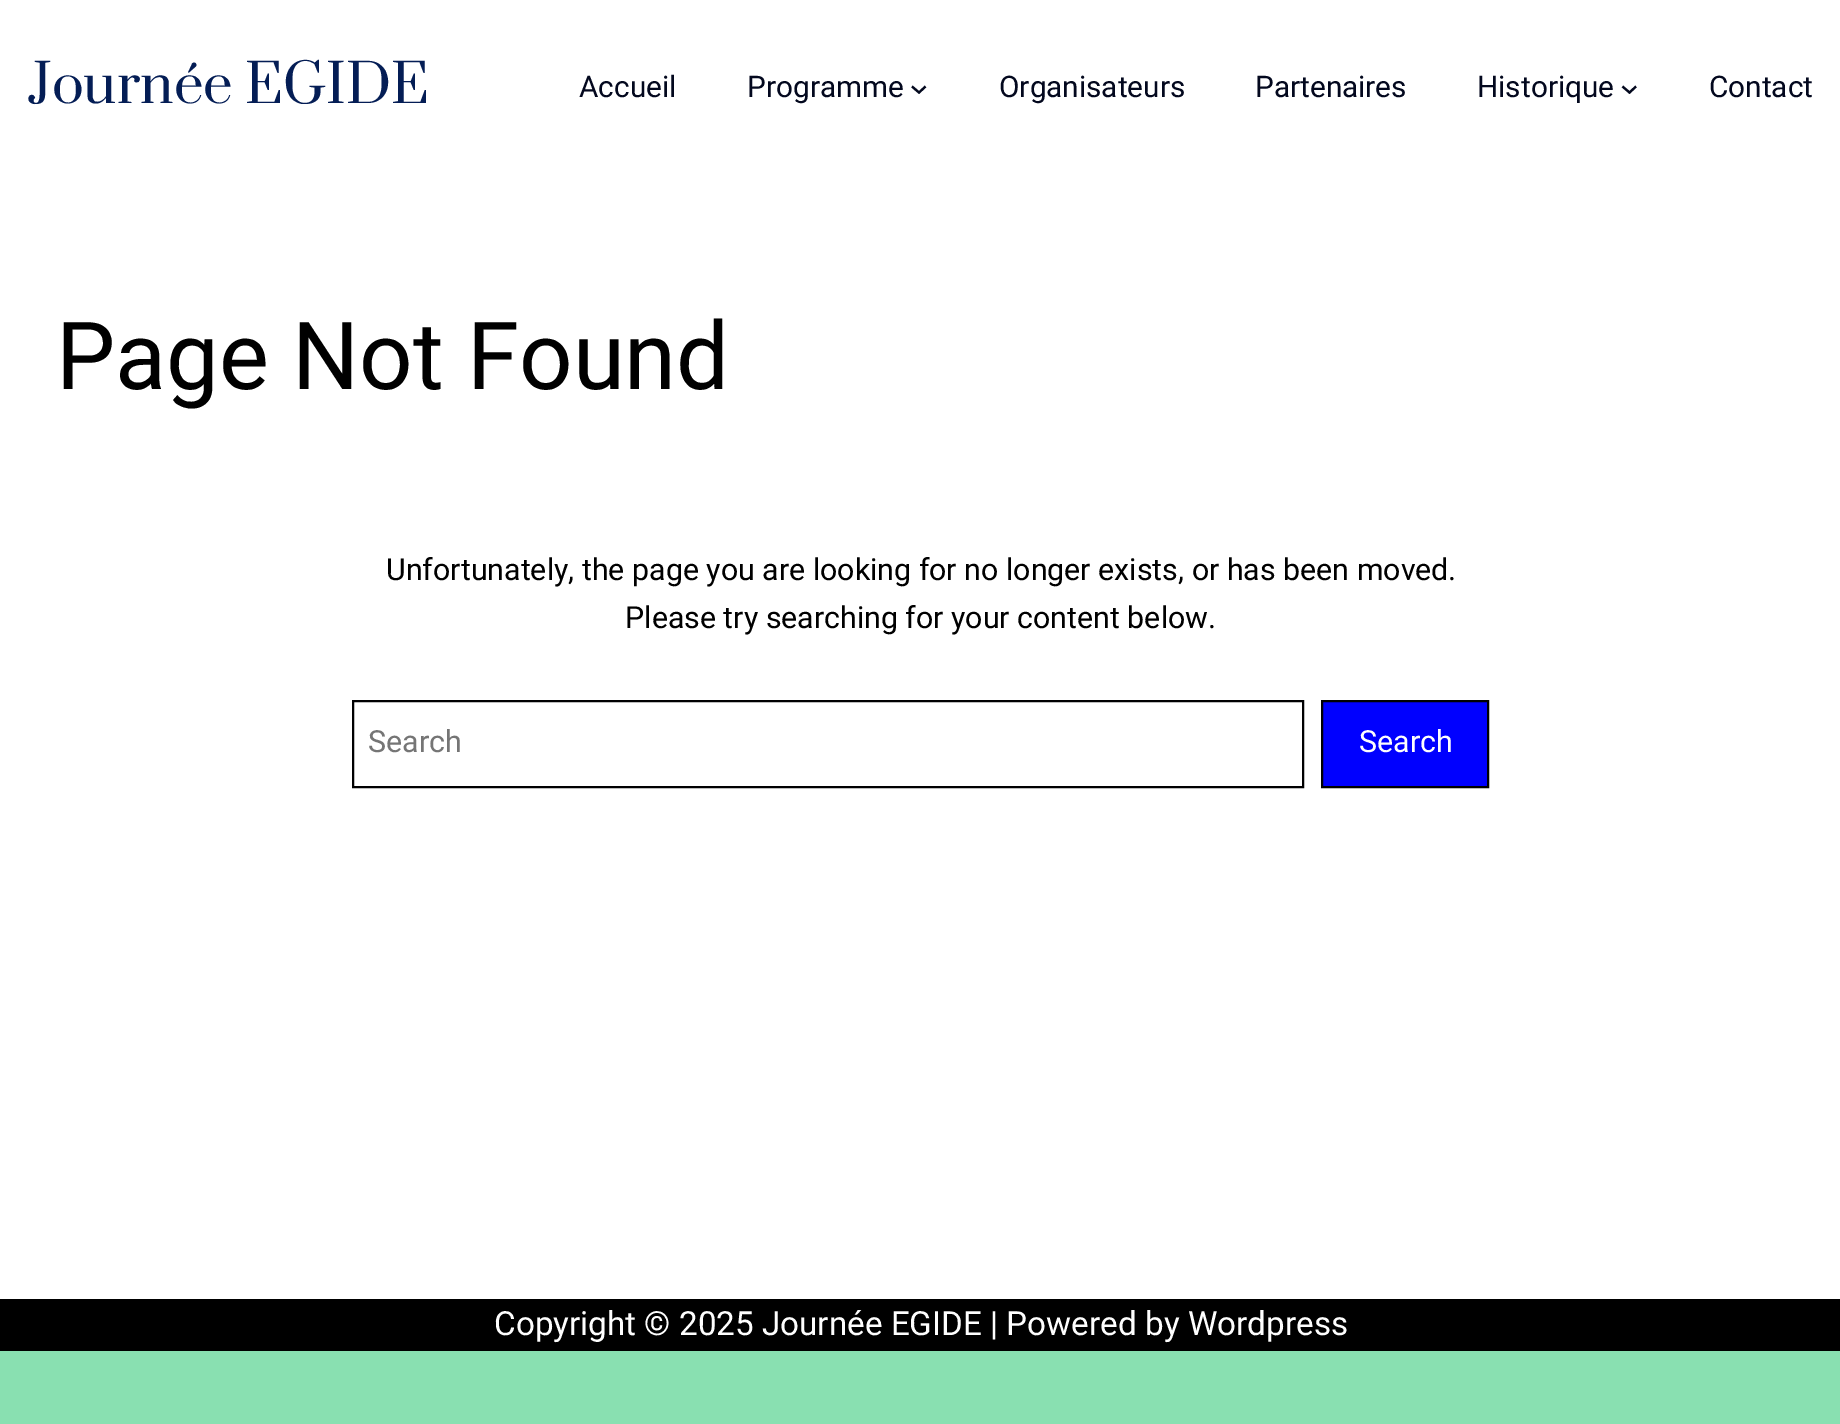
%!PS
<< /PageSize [1840 1424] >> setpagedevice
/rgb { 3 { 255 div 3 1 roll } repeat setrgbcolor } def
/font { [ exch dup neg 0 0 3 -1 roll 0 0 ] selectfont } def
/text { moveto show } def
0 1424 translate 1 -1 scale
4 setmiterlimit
255 255 255 rgb
0 0 1840 1424 rectfill
3 8 30 rgb
2.2 setlinewidth
912 86.5 moveto 7 6 rlineto 6.5 -6 rlineto stroke
1622.5 86.5 moveto 7 6 rlineto 6.5 -6 rlineto stroke
0 0 1 rgb
2 setlinewidth
353 701 950 86 rectstroke
0 0 255 rgb
1322 701 moveto 166 0 rlineto 0 86 rlineto -166 0 rlineto closepath gsave fill grestore
0 0 1 rgb
stroke
0 0 0 rgb
0 1299 1840 52 rectfill
137 224 177 rgb
0 1351 1840 73 rectfill
/Prata-Regular 52.75 font
4 29 85 rgb
(Journée EGIDE) 28 103 text
/Roboto-Regular 29.75 font
3 8 30 rgb
(Accueil) 579 97 text
(Programme) 747 97 text
(Organisateurs) 999 97 text
(Partenaires) 1255 97 text
(Historique) 1477 97 text
(Contact) 1709 97 text
/Roboto-Regular 94 font
0 0 0 rgb
(Page Not Found) 56 389 text
/Roboto-Regular 30.35 font
(Unfortunately, the page you are looking for no longer exists, or has been moved.) 386 580 text
(Please try searching for your content below.) 625 628 text
/Roboto-Regular 30.5 font
117 117 117 rgb
(Search) 368 752 text
254 254 254 rgb
(Search) 1359 752 text
/Roboto-Regular 33.25 font
(Copyright © 2025 Journée EGIDE | Powered by Wordpress) 494 1335 text
showpage
